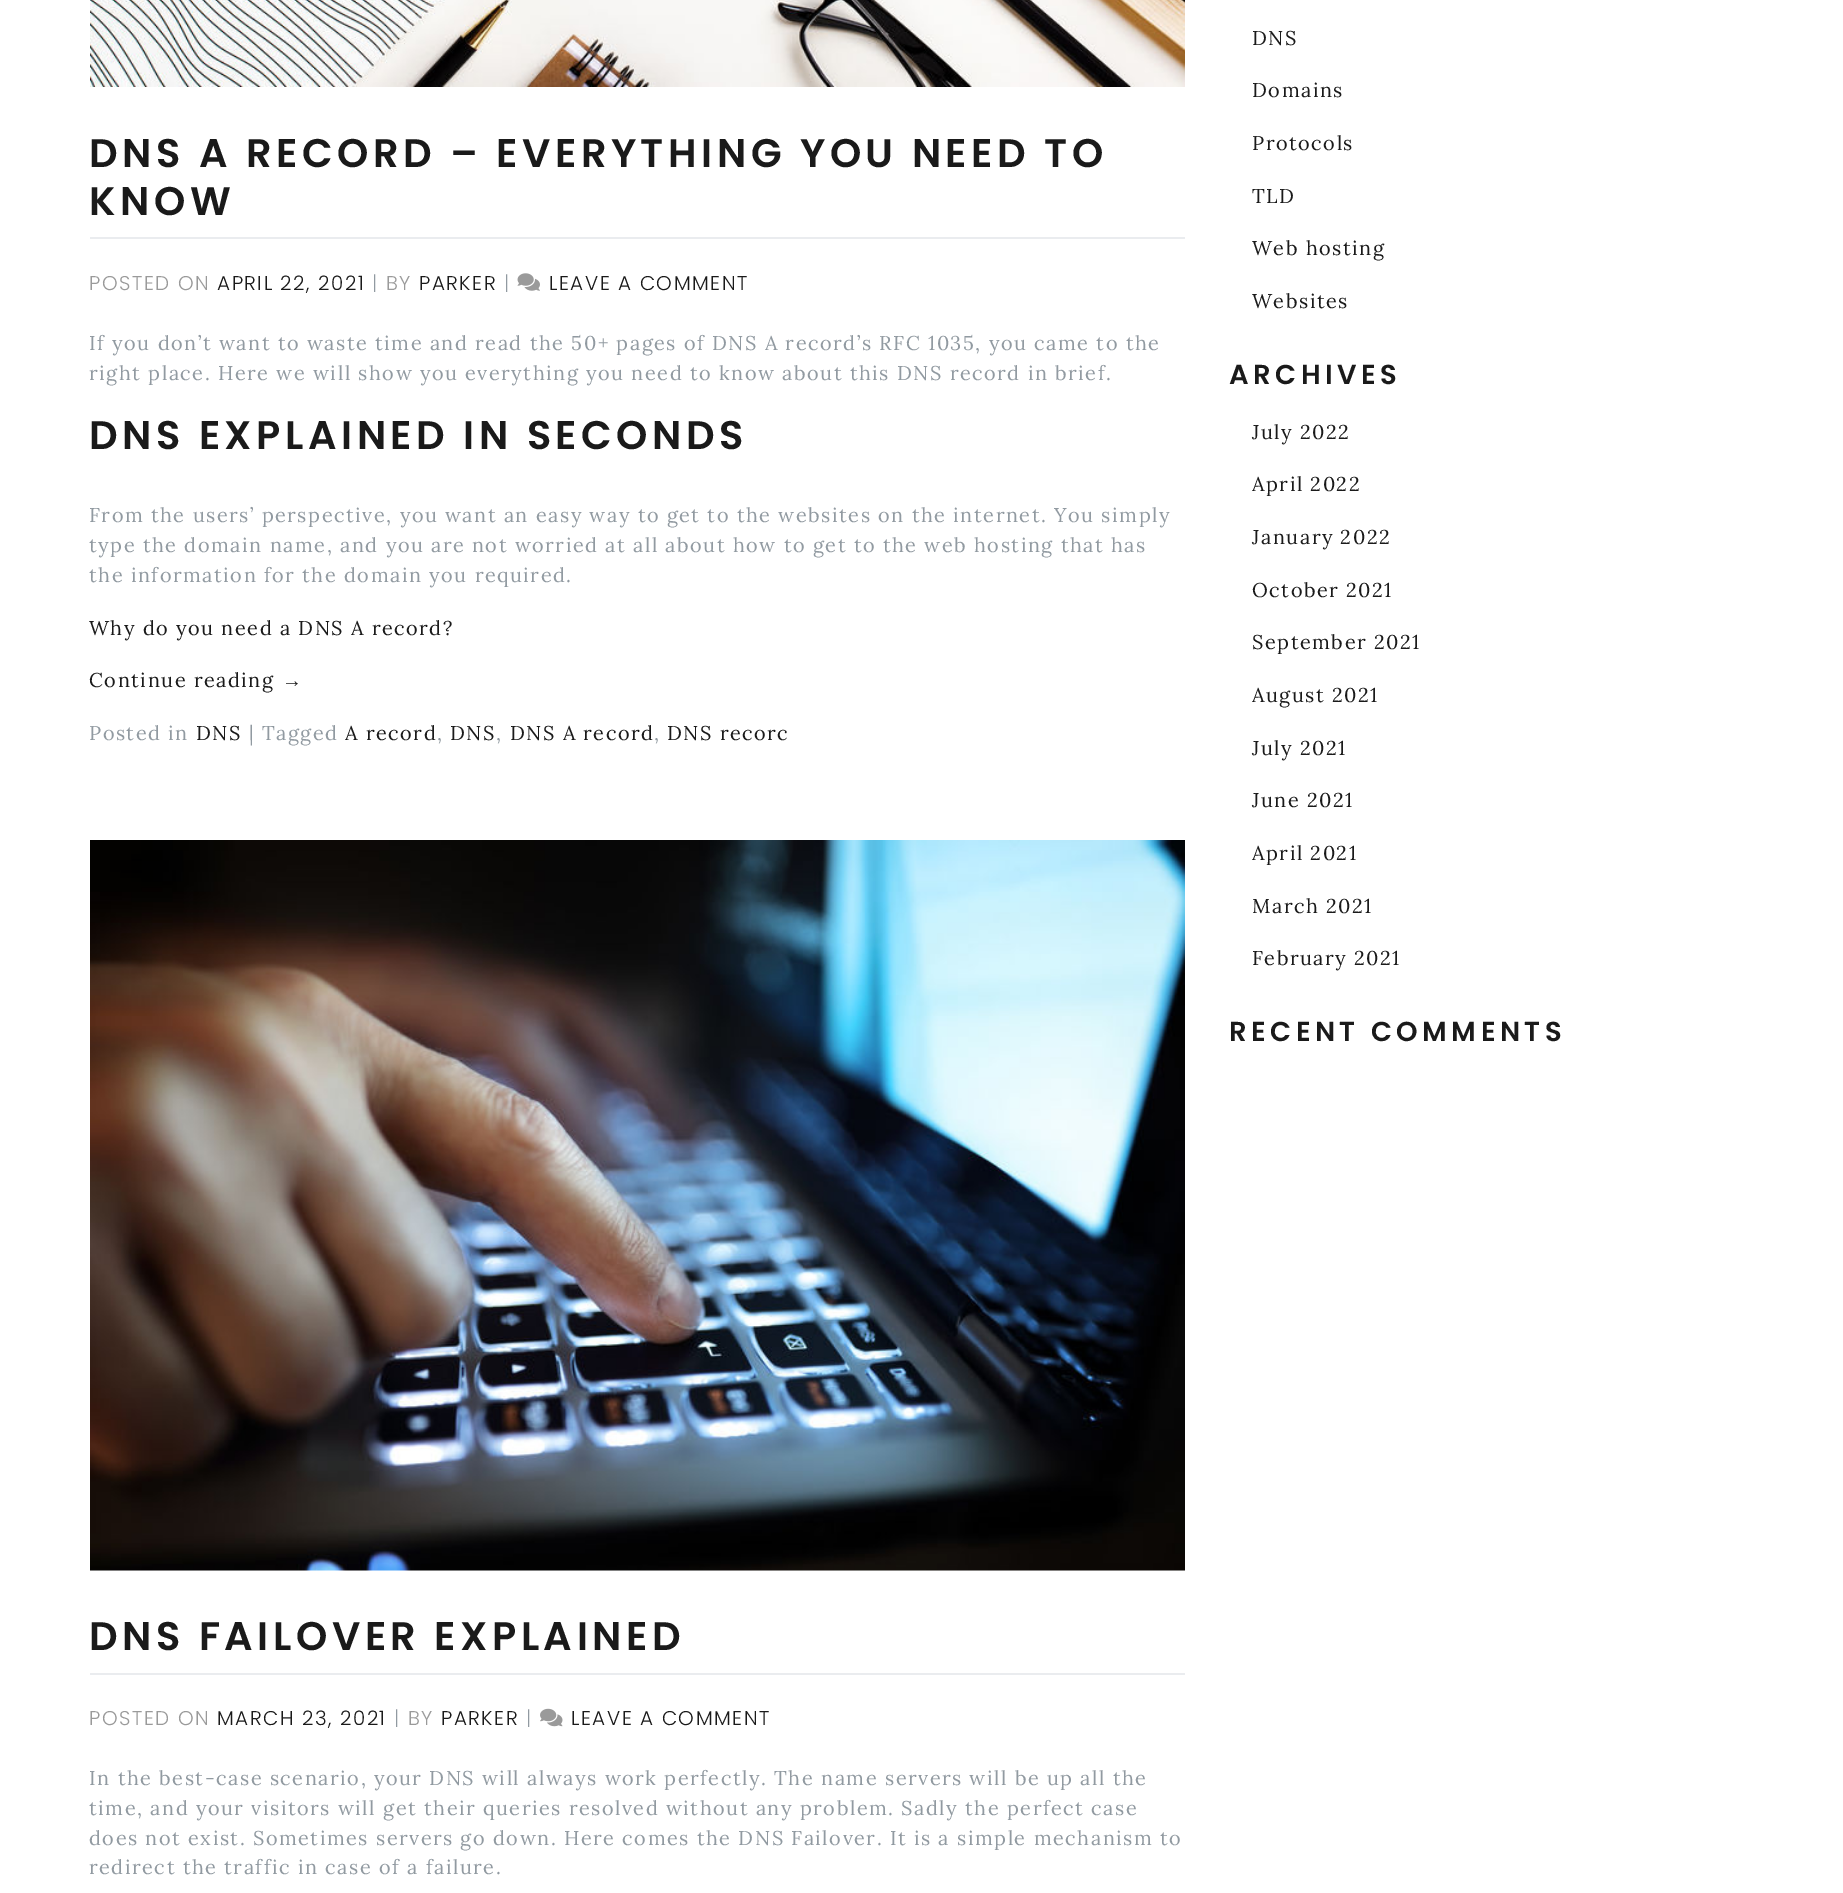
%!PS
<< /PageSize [1843 1893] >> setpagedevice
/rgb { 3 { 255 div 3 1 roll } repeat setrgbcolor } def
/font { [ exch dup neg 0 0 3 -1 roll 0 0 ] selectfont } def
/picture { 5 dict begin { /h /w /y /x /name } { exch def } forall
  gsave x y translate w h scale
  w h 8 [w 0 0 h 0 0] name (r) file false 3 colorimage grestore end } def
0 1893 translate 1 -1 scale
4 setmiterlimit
255 255 255 rgb
0 0 1843 1893 rectfill
(img_01.rgb) 90 0 1095 87 picture
234 236 239 rgb
90 237 1095 2 rectfill
(img_02.rgb) 517 273 23 18 picture
(img_03.rgb) 90 840 1095 731 picture
90 1673 1095 2 rectfill
(img_04.rgb) 540 1708 23 19 picture
/Poppins-SemiBold 39.9 font
26 26 26 rgb
89 167 moveto 4.5 0 (DNS A RECORD – EVERYTHING YOU NEED TO) ashow
89 215 moveto 4.5 0 (KNOW) ashow
/Poppins-Light 19.95 font
154 154 154 rgb
89 290 moveto 1.5 0 (POSTED ON) ashow
26 26 26 rgb
217 290 moveto 1.5 0 (APRIL 22, 2021) ashow
145 154 161 rgb
372 290 moveto 1.5 0 (|) ashow
154 154 154 rgb
386 290 moveto 1.5 0 (BY) ashow
26 26 26 rgb
419 290 moveto 1.5 0 (PARKER) ashow
145 154 161 rgb
504 290 moveto 1.5 0 (|) ashow
26 26 26 rgb
549 290 moveto 1.5 0 (LEAVE A COMMENT) ashow
/Lora-Regular 19.95 font
145 154 161 rgb
89 350 moveto 1.5 0 (If you don’t want to waste time and read the 50+ pages of DNS A record’s RFC 1035, you came to the) ashow
89 380 moveto 1.5 0 (right place. Here we will show you everything you need to know about this DNS record in brief.) ashow
/Poppins-SemiBold 39.9 font
26 26 26 rgb
89 449 moveto 4.5 0 (DNS EXPLAINED IN SECONDS) ashow
/Lora-Regular 19.95 font
145 154 161 rgb
89 522 moveto 1.5 0 (From the users’ perspective, you want an easy way to get to the websites on the internet. You simply) ashow
89 552 moveto 1.5 0 (type the domain name, and you are not worried at all about how to get to the web hosting that has) ashow
89 582 moveto 1.5 0 (the information for the domain you required.) ashow
26 26 26 rgb
89 635 moveto 1.5 0 (Why do you need a DNS A record?) ashow
89 687 moveto 1.5 0 (Continue reading) ashow
/LiberationSans-Regular 19.95 font
282 687 moveto 1.5 0 (→) ashow
/Lora-Regular 19.95 font
145 154 161 rgb
89 740 moveto 1.5 0 (Posted in) ashow
26 26 26 rgb
196 740 moveto 1.5 0 (DNS) ashow
145 154 161 rgb
249 740 moveto 1.5 0 (| Tagged) ashow
26 26 26 rgb
345 740 moveto 1.5 0 (A record) ashow
145 154 161 rgb
437 740 moveto 1.5 0 (,) ashow
26 26 26 rgb
450 740 moveto 1.5 0 (DNS) ashow
145 154 161 rgb
496 740 moveto 1.5 0 (,) ashow
26 26 26 rgb
510 740 moveto 1.5 0 (DNS A record) ashow
145 154 161 rgb
654 740 moveto 1.5 0 (,) ashow
26 26 26 rgb
667 740 moveto 1.5 0 (DNS recorc) ashow
/Poppins-SemiBold 39.9 font
89 1650 moveto 4.5 0 (DNS FAILOVER EXPLAINED) ashow
/Poppins-Light 19.95 font
154 154 154 rgb
89 1725 moveto 1.5 0 (POSTED ON) ashow
26 26 26 rgb
217 1725 moveto 1.5 0 (MARCH 23, 2021) ashow
145 154 161 rgb
394 1725 moveto 1.5 0 (|) ashow
154 154 154 rgb
408 1725 moveto 1.5 0 (BY) ashow
26 26 26 rgb
441 1725 moveto 1.5 0 (PARKER) ashow
145 154 161 rgb
526 1725 moveto 1.5 0 (|) ashow
26 26 26 rgb
571 1725 moveto 1.5 0 (LEAVE A COMMENT) ashow
/Lora-Regular 19.95 font
145 154 161 rgb
89 1785 moveto 1.5 0 (In the best-case scenario, your DNS will always work perfectly. The name servers will be up all the) ashow
89 1815 moveto 1.5 0 (time, and your visitors will get their queries resolved without any problem. Sadly the perfect case) ashow
89 1845 moveto 1.5 0 (does not exist. Sometimes servers go down. Here comes the DNS Failover. It is a simple mechanism to) ashow
89 1874 moveto 1.5 0 (redirect the traffic in case of a failure.) ashow
26 26 26 rgb
1252 45 moveto 1.5 0 (DNS) ashow
1252 97 moveto 1.5 0 (Domains) ashow
1252 150 moveto 1.5 0 (Protocols) ashow
1252 203 moveto 1.5 0 (TLD) ashow
1252 255 moveto 1.5 0 (Web hosting) ashow
1252 308 moveto 1.5 0 (Websites) ashow
/Poppins-SemiBold 27.4 font
1229 384 moveto 4.5 0 (ARCHIVES) ashow
/Lora-Regular 19.95 font
1252 439 moveto 1.5 0 (July 2022) ashow
1252 491 moveto 1.5 0 (April 2022) ashow
1252 544 moveto 1.5 0 (January 2022) ashow
1252 597 moveto 1.5 0 (October 2021) ashow
1252 649 moveto 1.5 0 (September 2021) ashow
1252 702 moveto 1.5 0 (August 2021) ashow
1252 755 moveto 1.5 0 (July 2021) ashow
1252 807 moveto 1.5 0 (June 2021) ashow
1252 860 moveto 1.5 0 (April 2021) ashow
1252 913 moveto 1.5 0 (March 2021) ashow
1252 965 moveto 1.5 0 (February 2021) ashow
/Poppins-SemiBold 27.4 font
1229 1041 moveto 4.5 0 (RECENT COMMENTS) ashow
showpage
